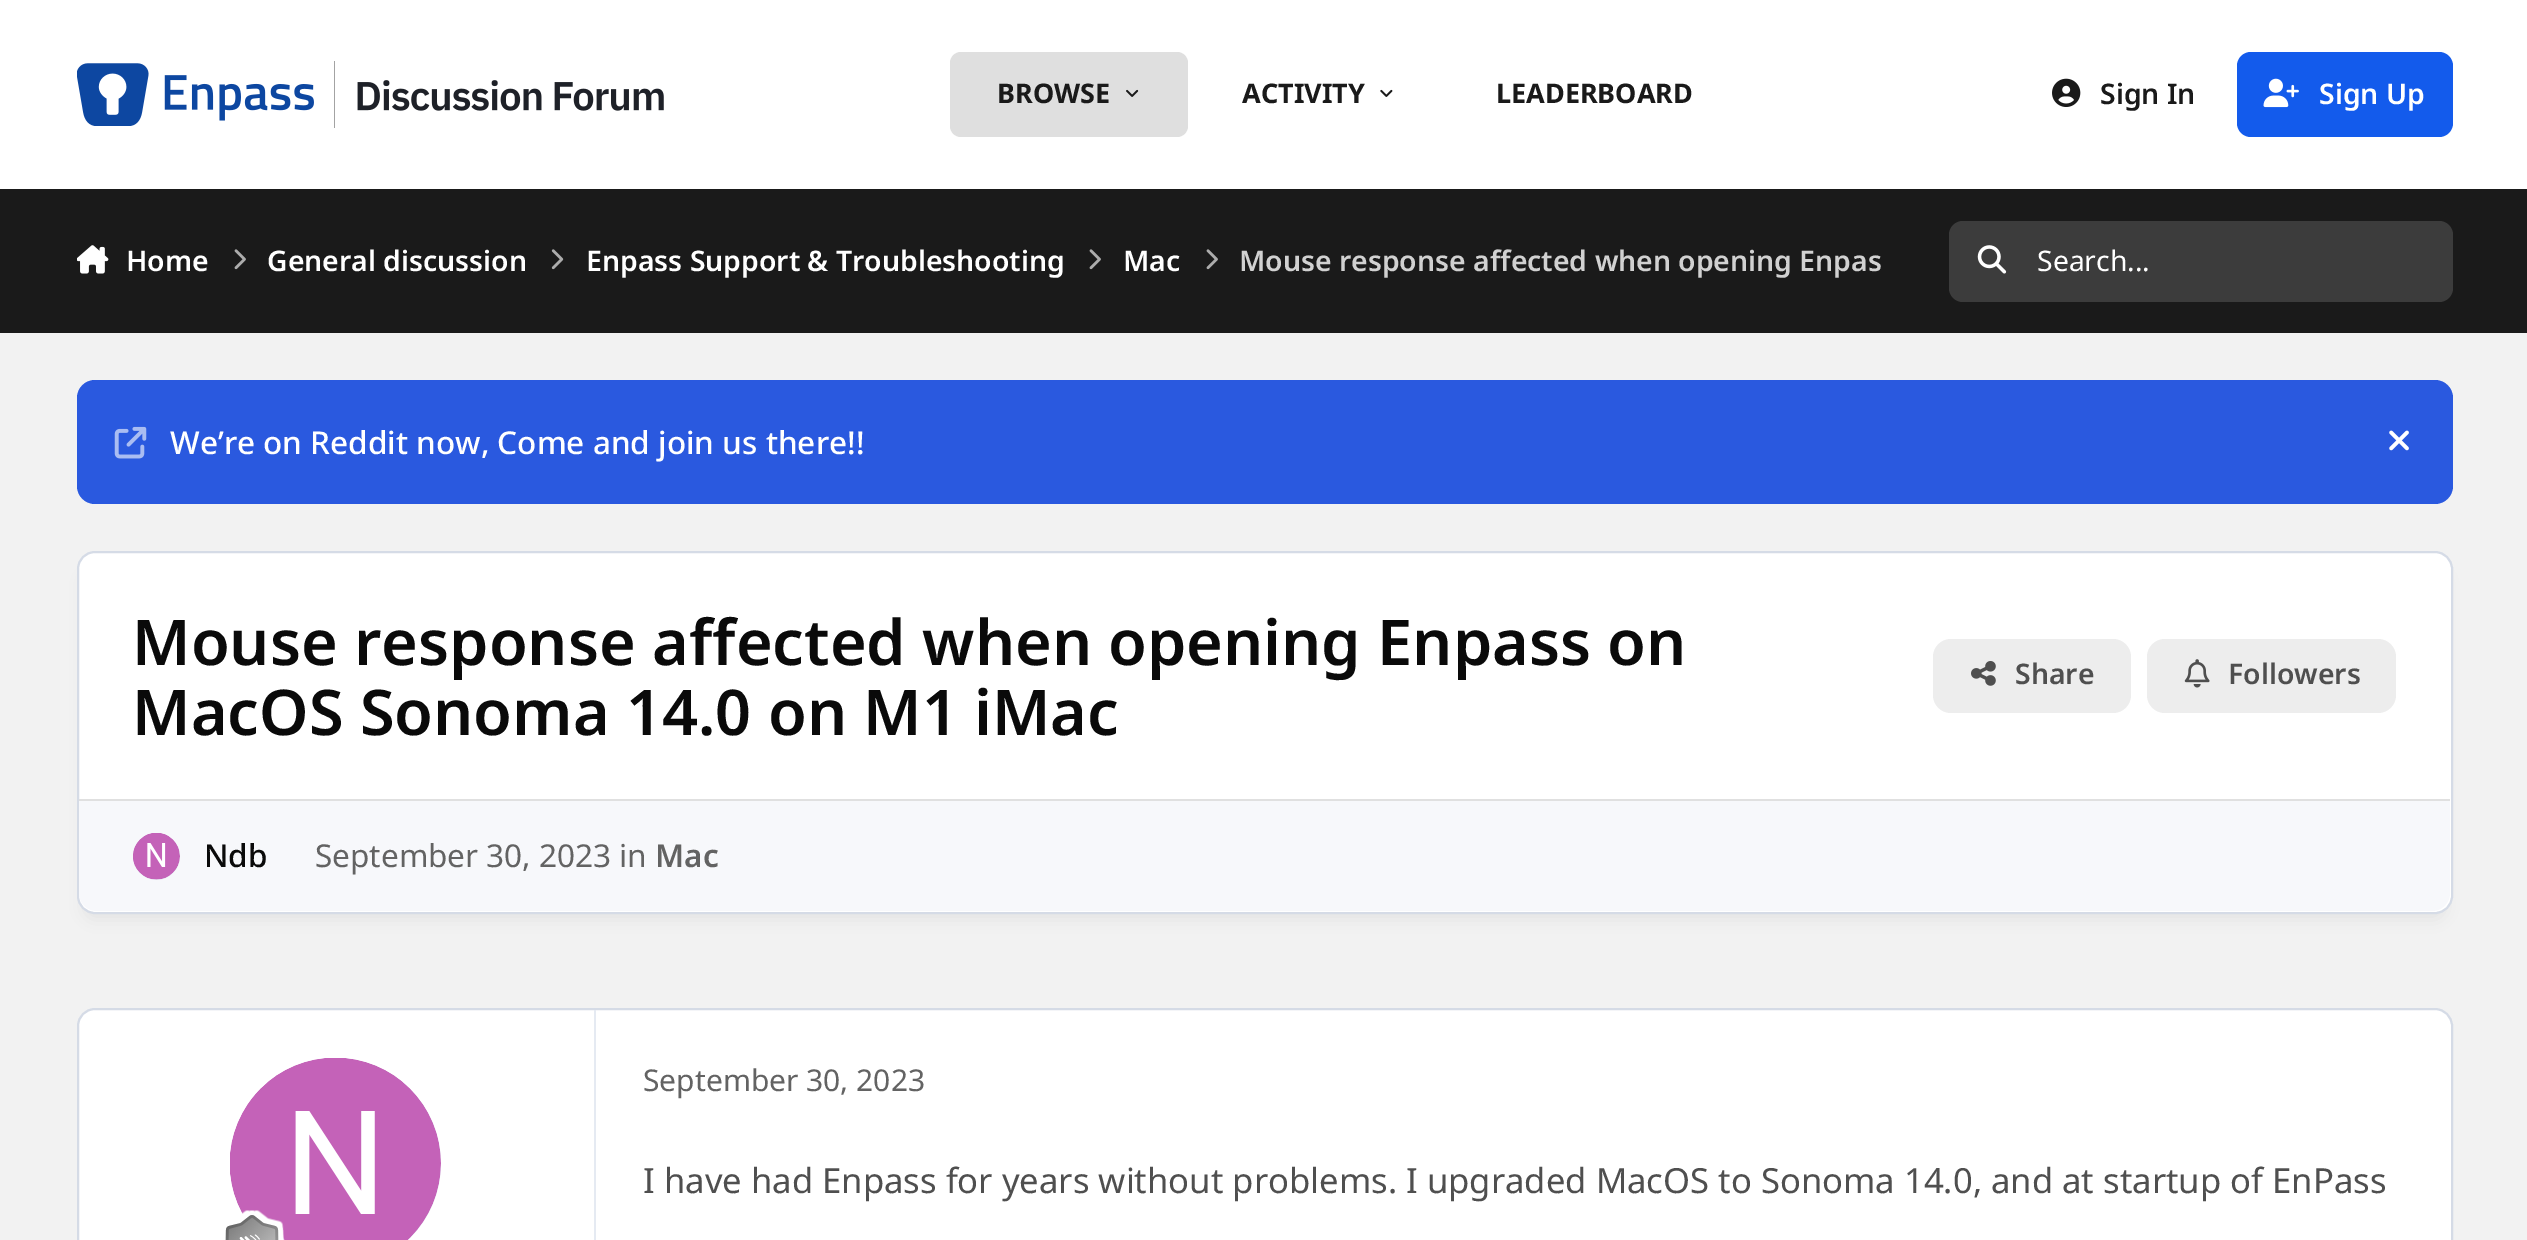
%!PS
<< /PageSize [2527 1240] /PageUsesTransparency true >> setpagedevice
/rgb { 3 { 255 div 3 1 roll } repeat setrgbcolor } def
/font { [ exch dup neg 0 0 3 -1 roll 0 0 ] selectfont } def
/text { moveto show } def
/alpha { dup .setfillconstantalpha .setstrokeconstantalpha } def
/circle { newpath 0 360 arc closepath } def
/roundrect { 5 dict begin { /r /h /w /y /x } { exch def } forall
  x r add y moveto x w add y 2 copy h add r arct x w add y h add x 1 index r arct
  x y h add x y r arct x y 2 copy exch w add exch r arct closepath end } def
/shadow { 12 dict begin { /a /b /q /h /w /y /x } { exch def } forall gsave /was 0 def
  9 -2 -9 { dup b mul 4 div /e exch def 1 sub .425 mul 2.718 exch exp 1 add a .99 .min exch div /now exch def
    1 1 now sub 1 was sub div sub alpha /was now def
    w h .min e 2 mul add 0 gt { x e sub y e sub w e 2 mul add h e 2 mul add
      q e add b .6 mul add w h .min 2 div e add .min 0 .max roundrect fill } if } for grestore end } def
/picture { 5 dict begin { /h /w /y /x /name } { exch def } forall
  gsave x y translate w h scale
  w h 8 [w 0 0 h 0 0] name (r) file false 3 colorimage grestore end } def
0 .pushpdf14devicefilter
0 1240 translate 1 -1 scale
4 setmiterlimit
242 242 242 rgb
0 0 2527 1240 rectfill
255 255 255 rgb
0 0 2527 189 rectfill
(img_01.rgb) 77 61 587 67 picture
223 223 223 rgb
950 52 238 85 11 roundrect fill
(img_02.rgb) 1126 89 13 8 picture
(img_03.rgb) 1380 89 13 8 picture
(img_04.rgb) 2052 78 29 29 picture
19 91 236 rgb
2237 52 216 85 14 roundrect fill
(img_05.rgb) 2263 78 36 30 picture
26 26 26 rgb
0 189 2527 144 rectfill
(img_06.rgb) 77 245 32 29 picture
(img_07.rgb) 234 249 12 21 picture
(img_08.rgb) 551 249 13 21 picture
(img_07.rgb) 1089 249 12 21 picture
(img_07.rgb) 1206 249 12 21 picture
60 60 60 rgb
1949 221 504 81 14 roundrect fill
(img_09.rgb) 1977 245 30 29 picture
42 89 223 rgb
77 380 2376 124 18 roundrect fill
(img_10.rgb) 114 426 33 33 picture
(img_11.rgb) 2389 430 20 21 picture
1 3 10 rgb
83 572 2363 348 11 8 0.05 shadow
255 255 255 rgb
78 552 2374 361 17 roundrect gsave fill grestore
213 219 230 rgb
2 setlinewidth
stroke
237 237 237 rgb
1933 639 198 74 18 roundrect fill
(img_12.rgb) 1971 661 25 25 picture
2147 639 249 74 18 roundrect fill
(img_13.rgb) 2184 659 26 29 picture
247 248 251 rgb
79 799 moveto 2371 0 rlineto 0 94 rlineto 0 10 -8 18 -18 18 rcurveto -2335 0 rlineto -10 0 -18 -8 -18 -18 rcurveto closepath fill
224 224 224 rgb
79 799 2371 2 rectfill
229 234 242 rgb
156.5 856.5 23.5 circle fill
(img_14.rgb) 133 833 47 47 picture
255 255 255 rgb
78 1009 2374 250 17 roundrect gsave fill grestore
213 219 230 rgb
stroke
229 234 242 rgb
594 1010 2 230 rectfill
335.5 1163.5 105.5 circle fill
(img_15.rgb) 230 1058 211 182 picture
(img_16.rgb) 225 1210 60 30 picture
/NotoSans-Bold 27 font
26 26 26 rgb
(BROWSE) 997 103 text
(ACTIVITY) 1242 103 text
(LEADERBOARD) 1496 103 text
/NotoSans-SemiBold 28.35 font
(Sign In) 2100 104 text
255 255 255 rgb
(Sign Up) 2319 104 text
(Home) 126 271 text
(General discussion) 267 271 text
(Enpass Support & Troubleshooting) 586 271 text
(Mac) 1123 271 text
209 209 209 rgb
(Mouse response affected when opening Enpas) 1239 271 text
/NotoSans-Regular 28.35 font
255 255 255 rgb
(Search...) 2037 271 text
/NotoSans-Medium 31.5 font
(We’re on Reddit now, Come and join us there!!) 170 454 text
/NotoSans-SemiBold 63 font
10 10 10 rgb
(Mouse response affected when opening Enpass on) 132 665 text
(MacOS Sonoma 14.0 on M1 iMac) 132 735 text
/NotoSans-SemiBold 28.35 font
79 79 79 rgb
(Share) 2015 684 text
(Followers) 2228 684 text
/NotoSans-Medium 31.5 font
10 10 10 rgb
(Ndb) 204 867 text
/NotoSans-Regular 31.5 font
99 99 99 rgb
(September 30, 2023 in) 315 867 text
/NotoSans-SemiBold 31.5 font
(Mac) 655 867 text
/NotoSans-Regular 30 font
(September 30, 2023) 643 1091 text
/NotoSans-Regular 34.65 font
79 79 79 rgb
(I have had Enpass for years without problems. I upgraded MacOS to Sonoma 14.0, and at startup of EnPass) 643 1193 text
.poppdf14devicefilter showpage
